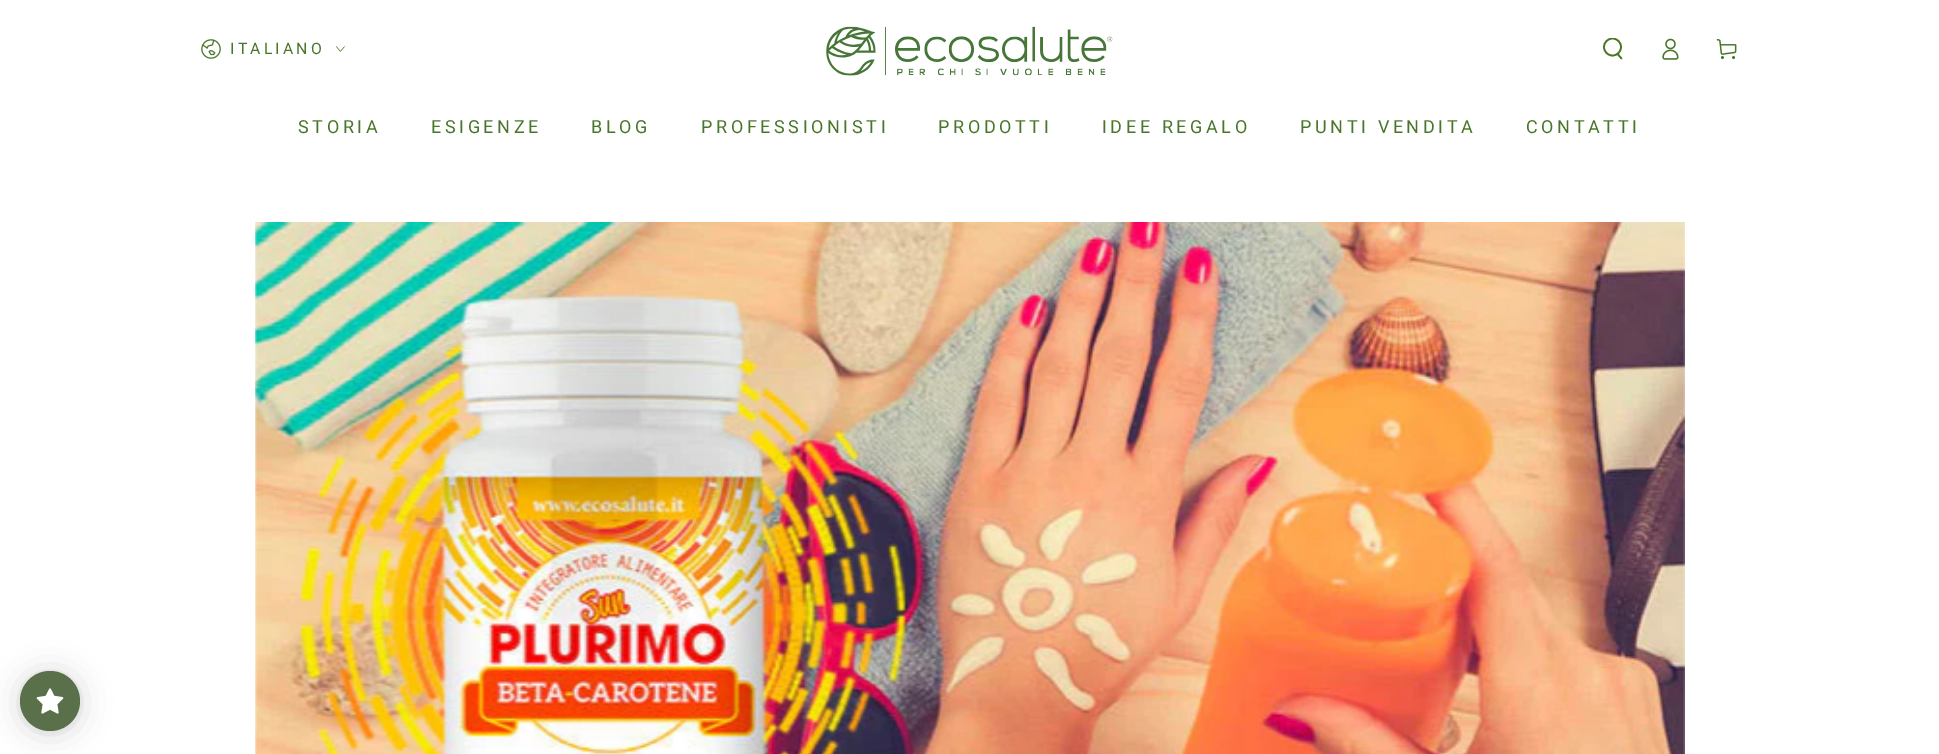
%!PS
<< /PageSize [1939 754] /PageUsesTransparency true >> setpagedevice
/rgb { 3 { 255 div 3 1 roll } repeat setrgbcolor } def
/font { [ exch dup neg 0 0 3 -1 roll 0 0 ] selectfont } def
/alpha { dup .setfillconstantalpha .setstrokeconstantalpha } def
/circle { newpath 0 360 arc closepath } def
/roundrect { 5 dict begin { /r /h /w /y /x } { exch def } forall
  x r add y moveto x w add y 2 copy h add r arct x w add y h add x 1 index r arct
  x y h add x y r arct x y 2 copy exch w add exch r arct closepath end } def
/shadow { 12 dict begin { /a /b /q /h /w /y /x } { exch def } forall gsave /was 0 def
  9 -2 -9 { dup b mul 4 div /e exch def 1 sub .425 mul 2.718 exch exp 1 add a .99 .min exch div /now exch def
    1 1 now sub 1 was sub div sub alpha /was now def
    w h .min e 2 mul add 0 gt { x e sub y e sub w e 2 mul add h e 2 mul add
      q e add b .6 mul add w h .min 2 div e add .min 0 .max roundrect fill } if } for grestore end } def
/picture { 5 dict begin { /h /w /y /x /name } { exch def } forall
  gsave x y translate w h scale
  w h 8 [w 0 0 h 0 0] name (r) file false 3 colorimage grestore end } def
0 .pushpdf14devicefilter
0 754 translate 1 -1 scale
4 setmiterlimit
255 255 255 rgb
0 0 1939 754 rectfill
(img_01.rgb) 201 39 20 20 picture
(img_02.rgb) 336 46 9 6 picture
(img_03.rgb) 826 26 287 50 picture
gsave
1602 38 22 22 rectclip
73 118 41 rgb
1.7 setlinewidth
1612.5 47 8.5 circle stroke
grestore
73 118 41 rgb
1.7 setlinewidth
1 setlinecap
1617.5 54 moveto 4 4.5 rlineto stroke
(img_04.rgb) 1662 38 17 22 picture
(img_05.rgb) 1716 39 21 21 picture
(img_06.rgb) 255 222 1430 532 picture
0 0 0 rgb
20 673 60 60 30 15 0.15 shadow
20 672 60 60 30 3 0.05 shadow
90 112 74 rgb
50 701 30 circle fill
(img_07.rgb) 36 688 28 26 picture
/Roboto-Regular 15.75 font
73 118 41 rgb
230 54 moveto 3.25 0 (ITALIANO) ashow
/Roboto-Regular 18 font
298 133 moveto 3.6 0 (STORIA) ashow
431 133 moveto 3.6 0 (ESIGENZE) ashow
591 133 moveto 3.6 0 (BLOG) ashow
701 133 moveto 3.6 0 (PROFESSIONISTI) ashow
938 133 moveto 3.6 0 (PRODOTTI) ashow
1102 133 moveto 3.6 0 (IDEE REGALO) ashow
1300 133 moveto 3.6 0 (PUNTI VENDITA) ashow
1526 133 moveto 3.6 0 (CONTATTI) ashow
.poppdf14devicefilter showpage
